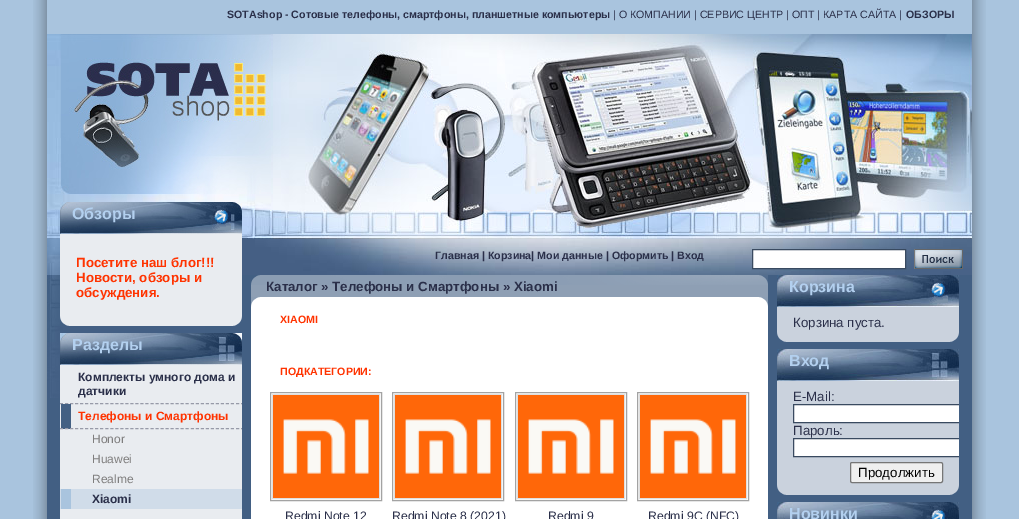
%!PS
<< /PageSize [1019 519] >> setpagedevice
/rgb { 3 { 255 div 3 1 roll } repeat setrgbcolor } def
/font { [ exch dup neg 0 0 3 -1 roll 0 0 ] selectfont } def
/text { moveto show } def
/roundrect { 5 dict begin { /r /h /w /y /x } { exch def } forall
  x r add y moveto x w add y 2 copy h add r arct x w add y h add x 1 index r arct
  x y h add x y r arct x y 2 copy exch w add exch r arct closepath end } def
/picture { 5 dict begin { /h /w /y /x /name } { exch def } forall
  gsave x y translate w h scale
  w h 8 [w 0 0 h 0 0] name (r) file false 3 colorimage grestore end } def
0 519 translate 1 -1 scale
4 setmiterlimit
169 196 222 rgb
0 0 1019 519 rectfill
(img_01.rgb) 33 0 953 519 picture
66 95 131 rgb
47 275 925 244 rectfill
(img_02.rgb) 47 275 158 123 picture
(img_03.rgb) 47 34 226 205 picture
(img_04.rgb) 61 34 210 160 picture
(img_05.rgb) 273 34 699 205 picture
(img_06.rgb) 60 202 182 32 picture
(img_07.rgb) 212 205 19 25 picture
(img_09.rgb) 47 239 925 36 picture
233 236 240 rgb
60 234 182 82 rectfill
(img_08.rgb) 60 316 182 10 picture
(img_06.rgb) 60 333 182 32 picture
60 365 182 154 rectfill
gsave
60 365 182 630 rectclip
151 154 168 rgb
[3 2.03] 0 setdash
60 403.5 moveto 189 0 rlineto stroke
grestore
67 96 131 rgb
61 404 10 25 rectfill
gsave
60 365 182 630 rectclip
151 154 168 rgb
[3 2.03] 0 setdash
60 428.5 moveto 189 0 rlineto stroke
grestore
208 220 233 rgb
60 489 182 20 rectfill
169 196 222 rgb
61 489 10 20 rectfill
255 255 255 rgb
752.5 249.5 moveto 153 0 rlineto 0 19 rlineto -153 0 rlineto closepath gsave fill grestore
57 74 96 rgb
stroke
(img_10.rgb) 914 249 49 20 picture
142 159 180 rgb
251 285 517 12 rectfill
(img_11.rgb) 251 275 517 10 picture
255 255 255 rgb
251 307 517 212 rectfill
(img_12.rgb) 251 297 517 10 picture
163 163 163 rgb
270.5 392.5 111 108 rectstroke
223 223 223 rgb
272.5 394.5 107 104 rectstroke
(img_13.rgb) 273 395 106 103 picture
163 163 163 rgb
392.5 392.5 111 108 rectstroke
223 223 223 rgb
394.5 394.5 107 104 rectstroke
(img_13.rgb) 395 395 106 103 picture
163 163 163 rgb
515.5 392.5 111 108 rectstroke
223 223 223 rgb
517.5 394.5 107 104 rectstroke
(img_13.rgb) 518 395 106 103 picture
163 163 163 rgb
637.5 392.5 111 108 rectstroke
223 223 223 rgb
639.5 394.5 107 104 rectstroke
(img_13.rgb) 640 395 106 103 picture
(img_14.rgb) 777 275 182 32 picture
(img_07.rgb) 929 278 19 25 picture
202 210 221 rgb
777 307 182 25 rectfill
(img_15.rgb) 777 332 182 10 picture
(img_14.rgb) 777 349 182 32 picture
777 381 182 104 rectfill
(img_15.rgb) 777 485 182 10 picture
255 255 255 rgb
794 405 165 17 rectfill
gsave
777 381 182 114 rectclip
57 74 96 rgb
793.5 404.5 182 18 rectstroke
grestore
794 439 165 17 rectfill
gsave
777 381 182 114 rectclip
57 74 96 rgb
793.5 438.5 182 18 rectstroke
grestore
239 239 239 rgb
850.5 462.5 92 20 1.5 roundrect gsave fill grestore
118 118 118 rgb
stroke
(img_16.rgb) 777 502 182 17 picture
(img_17.rgb) 929 505 19 14 picture
/LiberationSans-Bold 10.65 font
42 47 73 rgb
(SOTAshop - Сотовые телефоны, смартфоны, планшетные компьютеры) 227 18 text
/LiberationSans-Regular 10.65 font
(| О КОМПАНИИ | СЕРВИС ЦЕНТР | ОПТ | КАРТА САЙТА |) 613 18 text
/LiberationSans-Bold 10.65 font
(ОБЗОРЫ) 906 18 text
/LiberationSans-Bold 16 font
179 208 239 rgb
(Обзоры) 72 219 text
/LiberationSans-Bold 13.3 font
255 51 0 rgb
(Посетите наш блог!!!) 76 267 text
(Новости, обзоры и) 76 282 text
(обсуждения.) 76 297 text
/LiberationSans-Bold 16 font
179 208 239 rgb
(Разделы) 72 350 text
/LiberationSans-Bold 12 font
42 47 73 rgb
(Комплекты умного дома и) 78 381 text
(датчики) 78 395 text
255 51 0 rgb
(Телефоны и Смартфоны) 78 420 text
/LiberationSans-Regular 12 font
127 126 126 rgb
(Honor) 92 443 text
(Huawei) 92 463 text
(Realme) 92 483 text
/LiberationSans-Bold 12 font
42 47 73 rgb
(Xiaomi) 92 503 text
/LiberationSans-Bold 10.65 font
(Главная | Корзина| Мои данные | Оформить | Вход) 435 259 text
/LiberationSans-Bold 13.3 font
(Каталог » Телефоны и Смартфоны » Xiaomi) 266 291 text
/LiberationSans-Bold 10.65 font
255 51 0 rgb
(XIAOMI) 280 323 text
(ПОДКАТЕГОРИИ:) 280 375 text
/LiberationSans-Regular 12.25 font
42 47 73 rgb
(Redmi Note 12) 285 520 text
(Redmi Note 8 \(2021\)) 392 520 text
(Redmi 9) 548 520 text
(Redmi 9C \(NFC\)) 648 520 text
/LiberationSans-Bold 16 font
179 208 239 rgb
(Корзина) 789 292 text
/LiberationSans-Regular 13.3 font
42 47 73 rgb
(Корзина пуста.) 793 327 text
/LiberationSans-Bold 16 font
179 208 239 rgb
(Вход) 789 366 text
/LiberationSans-Regular 13.3 font
42 47 73 rgb
(E-Mail:) 793 401 text
(Пароль:) 793 435 text
0 0 0 rgb
(Продолжить) 858 477 text
/LiberationSans-Bold 16 font
179 208 239 rgb
(Новинки) 789 519 text
showpage
